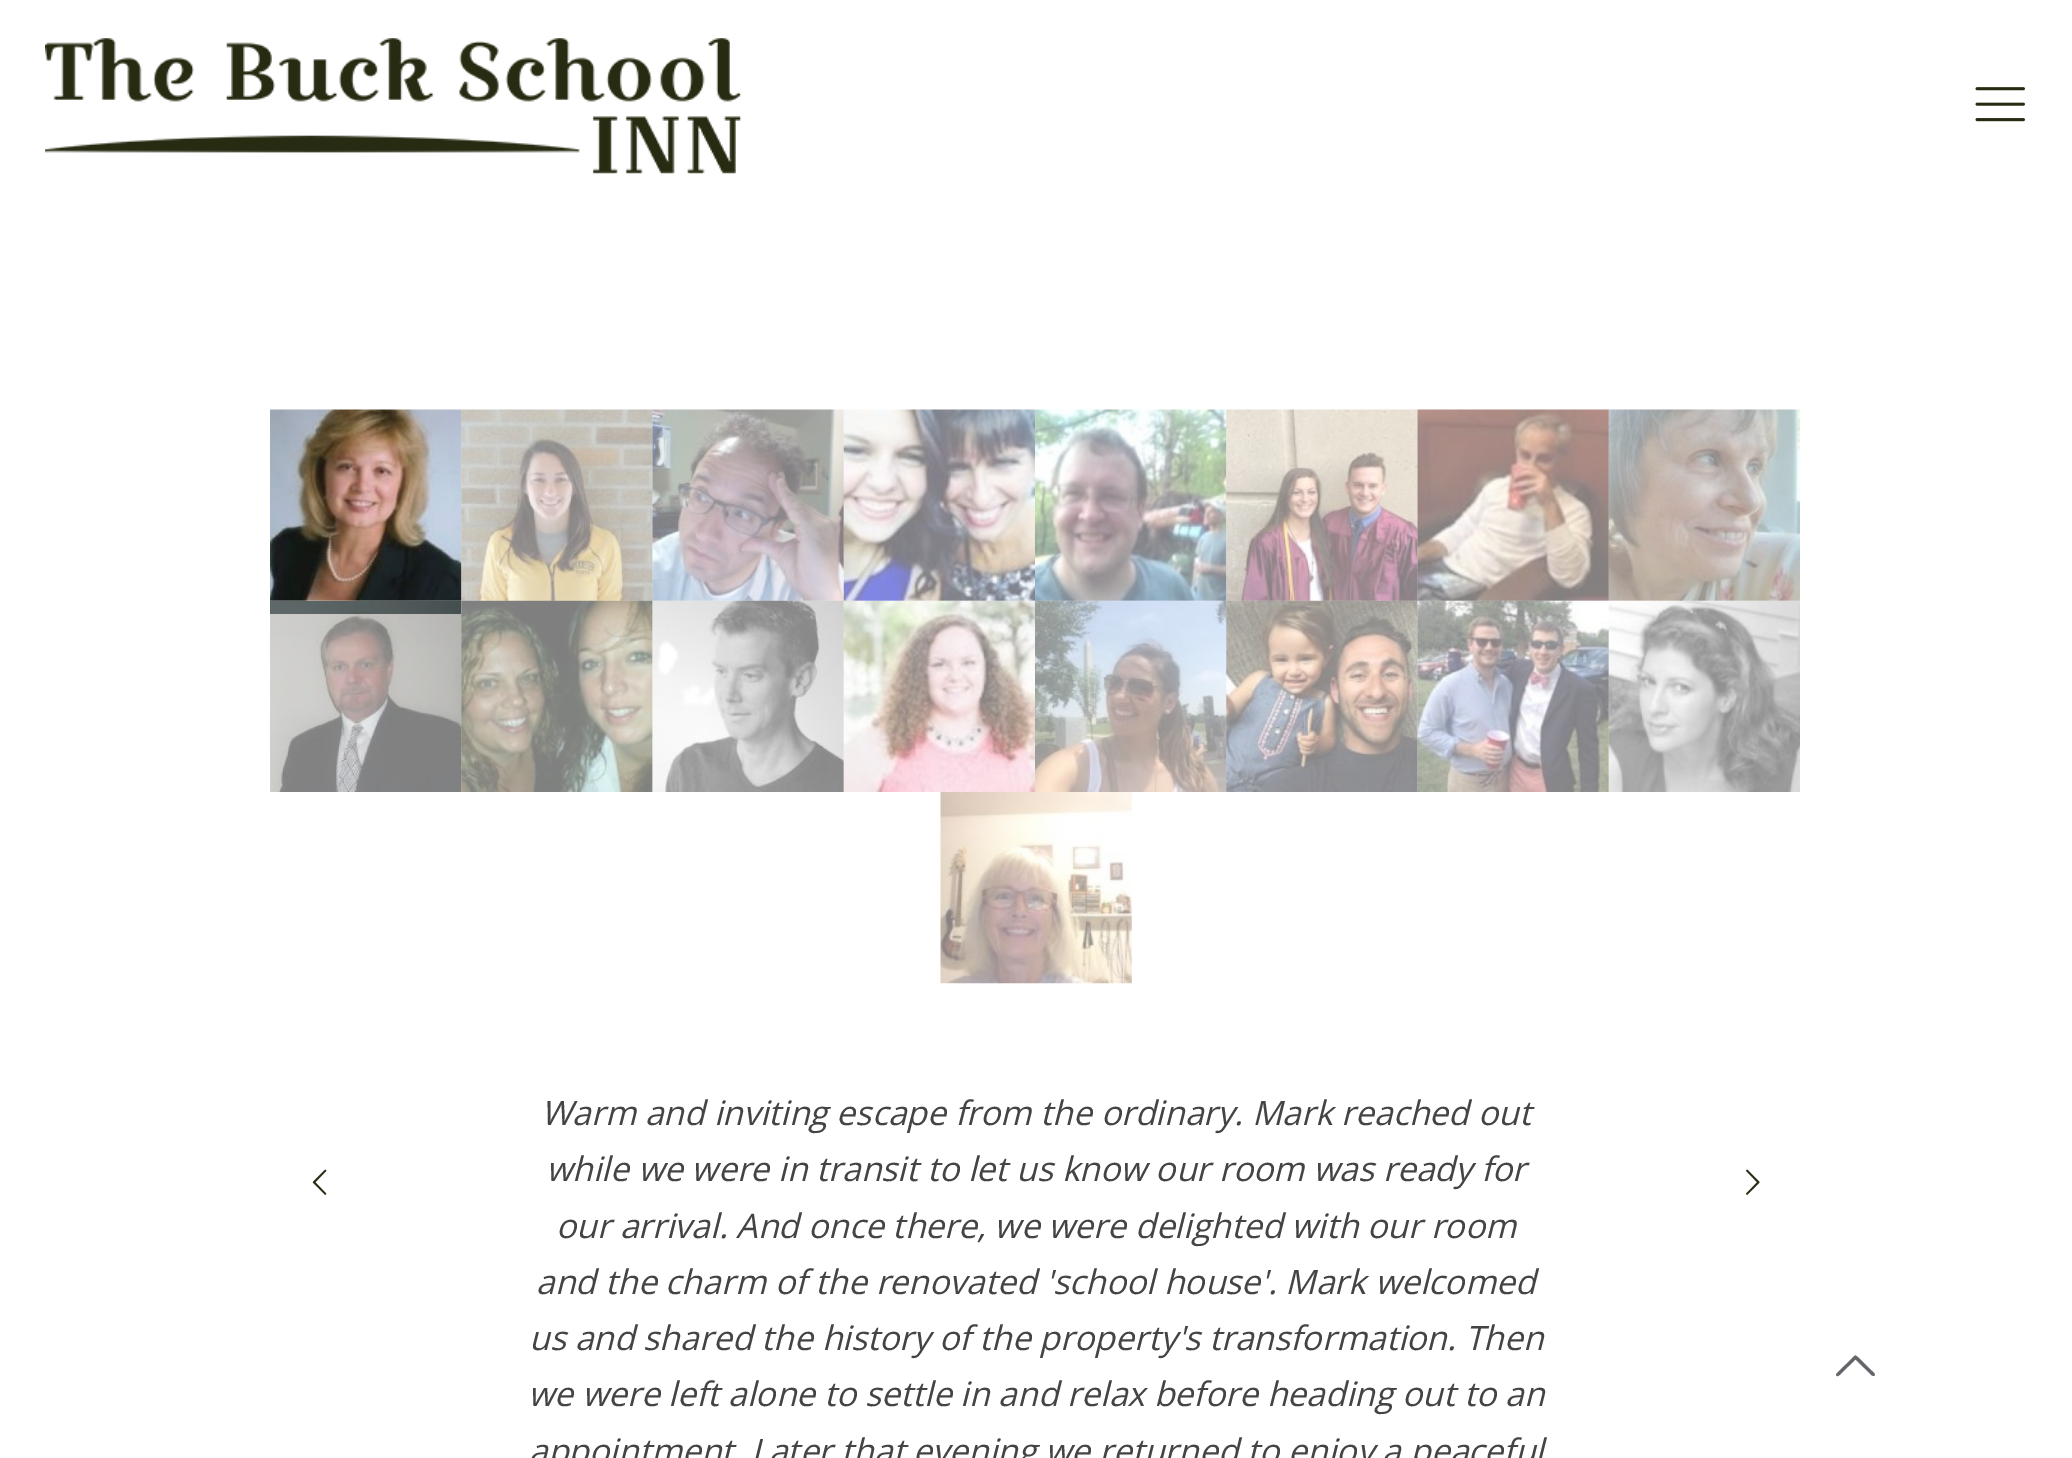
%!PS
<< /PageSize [2072 1458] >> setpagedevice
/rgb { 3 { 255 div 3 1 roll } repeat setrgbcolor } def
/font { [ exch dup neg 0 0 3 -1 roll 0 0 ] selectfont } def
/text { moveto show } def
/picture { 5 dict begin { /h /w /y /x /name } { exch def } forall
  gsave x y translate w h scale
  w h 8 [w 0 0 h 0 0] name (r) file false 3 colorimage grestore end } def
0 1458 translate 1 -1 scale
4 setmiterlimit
255 255 255 rgb
0 0 2072 1458 rectfill
(img_01.rgb) 45 38 696 136 picture
(img_02.rgb) 1975 87 50 35 picture
(img_03.rgb) 270 409 192 192 picture
34 54 60 rgb
270 601 191 13 rectfill
(img_04.rgb) 461 409 192 192 picture
(img_05.rgb) 652 409 192 192 picture
(img_06.rgb) 843 409 192 192 picture
(img_07.rgb) 1035 409 192 192 picture
(img_08.rgb) 1226 409 192 192 picture
(img_09.rgb) 1417 409 192 192 picture
(img_10.rgb) 1608 409 192 192 picture
(img_11.rgb) 270 600 192 192 picture
(img_12.rgb) 461 600 192 192 picture
(img_13.rgb) 652 600 192 192 picture
(img_14.rgb) 843 600 192 192 picture
(img_15.rgb) 1035 600 192 192 picture
(img_16.rgb) 1226 600 192 192 picture
(img_17.rgb) 1417 600 192 192 picture
(img_18.rgb) 1608 600 192 192 picture
(img_19.rgb) 940 792 192 192 picture
(img_20.rgb) 312 1169 15 26 picture
(img_21.rgb) 1746 1169 14 26 picture
101 102 108 rgb
1872 1375.5 moveto -16.5 -16 rlineto -14 13.5 rlineto -1 1 -4 5 -5.5 2 rcurveto 0.5 -1.5 rlineto 18.5 -18 rlineto 1.5 -0.5 6.5 5.5 7.5 6 rcurveto 9 9 rlineto 0 0 6 4.5 2 5.5 rcurveto closepath fill
/OpenSans-Italic 33.75 font
68 68 68 rgb
(Warm and inviting escape from the ordinary. Mark reached out) 541 1125 text
(while we were in transit to let us know our room was ready for) 546 1181 text
(our arrival. And once there, we were delighted with our room) 556 1238 text
(and the charm of the renovated 'school house'. Mark welcomed) 536 1294 text
(us and shared the history of the property's transformation. Then) 529 1350 text
(we were left alone to settle in and relax before heading out to an) 528 1406 text
(appointment. Later that evening we returned to enjoy a peaceful) 529 1463 text
showpage
